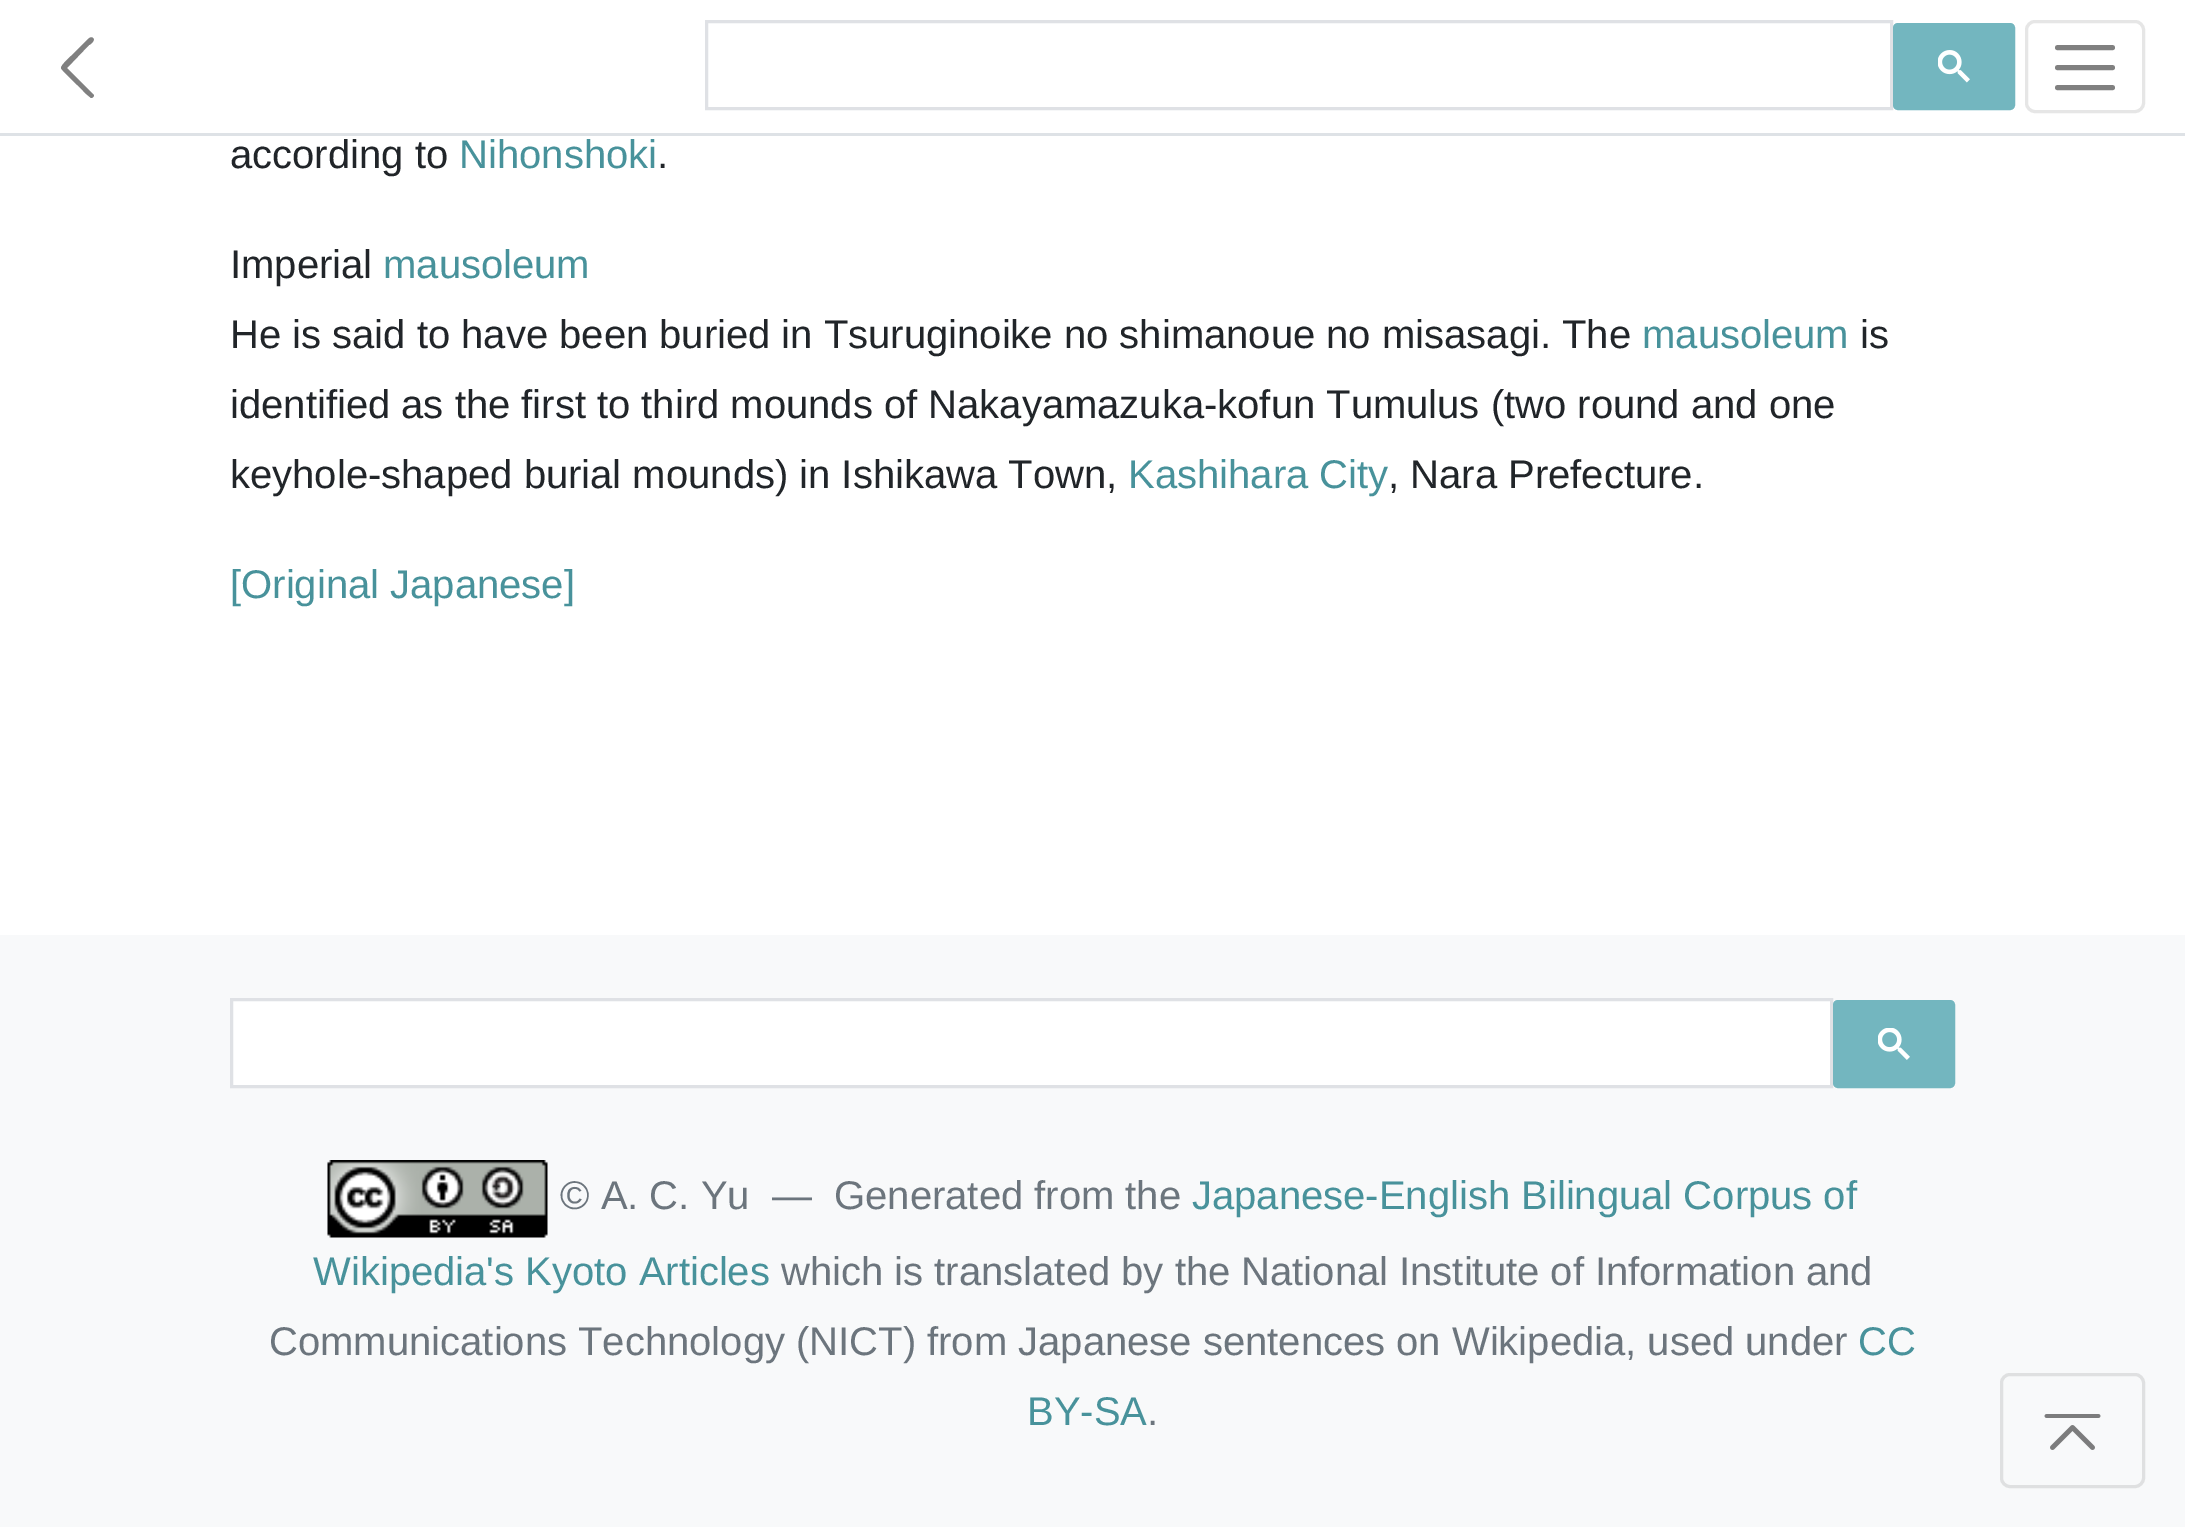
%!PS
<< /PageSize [2185 1527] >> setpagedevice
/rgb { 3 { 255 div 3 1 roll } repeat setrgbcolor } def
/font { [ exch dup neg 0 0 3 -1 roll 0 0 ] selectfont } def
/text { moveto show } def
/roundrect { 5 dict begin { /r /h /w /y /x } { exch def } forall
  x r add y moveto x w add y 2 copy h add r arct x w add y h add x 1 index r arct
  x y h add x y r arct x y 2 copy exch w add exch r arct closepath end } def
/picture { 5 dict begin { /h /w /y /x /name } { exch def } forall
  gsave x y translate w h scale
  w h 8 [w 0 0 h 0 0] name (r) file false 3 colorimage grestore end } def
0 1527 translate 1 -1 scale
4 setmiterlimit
255 255 255 rgb
0 0 2185 1527 rectfill
222 226 230 rgb
0 133 2185 3 rectfill
128 128 128 rgb
93 38 moveto 3 2 -3 7 -4 7 rcurveto -22 23 rlineto 27 27 rlineto 0 1 -1 3 -3 3 rcurveto -6 -5 rlineto -3 -4 -24 -23 -24 -25 rcurveto 0 -3 8 -10 10 -12 rcurveto 14 -14 rlineto 1 0 5 -7 8 -4 rcurveto closepath eofill
223 225 229 rgb
3 setlinewidth
706.5 21.5 1185 87 rectstroke
115 182 191 rgb
1894.5 24.5 119 84 3.5 roundrect gsave fill grestore
stroke
(img_01.rgb) 1938 50 32 33 picture
230 230 230 rgb
2026.5 21.5 117 90 8.5 roundrect stroke
128 128 128 rgb
5 setlinewidth
1 setlinecap
2057.5 47.5 moveto 55 0 rlineto 2057.5 67.5 moveto 55 0 rlineto 2057.5 87.5 moveto 55 0 rlineto stroke
248 249 250 rgb
0 935 2185 592 rectfill
255 255 255 rgb
231.5 999.5 moveto 1600 0 rlineto 0 87 rlineto -1600 0 rlineto closepath gsave fill grestore
223 225 229 rgb
3 setlinewidth
0 setlinecap
stroke
115 182 191 rgb
1834.5 1001.5 119 85 3.5 roundrect gsave fill grestore
stroke
(img_02.rgb) 1878 1028 32 32 picture
(img_03.rgb) 327 1160 221 78 picture
223 224 225 rgb
2001.5 1374.5 142 112 8.5 roundrect stroke
(img_04.rgb) 2044 1414 57 36 picture
/LiberationSans-Regular 40 font
33 37 41 rgb
(according to) 230 168 text
72 146 155 rgb
(Nihonshoki) 459 168 text
33 37 41 rgb
(.) 657 168 text
(Imperial) 230 278 text
72 146 155 rgb
(mausoleum) 383 278 text
33 37 41 rgb
(He is said to have been buried in Tsuruginoike no shimanoue no misasagi. The) 230 348 text
72 146 155 rgb
(mausoleum) 1642 348 text
33 37 41 rgb
(is) 1860 348 text
(identified as the first to third mounds of Nakayamazuka-kofun Tumulus \(two round and one) 230 418 text
(keyhole-shaped burial mounds\) in Ishikawa Town,) 230 488 text
72 146 155 rgb
(Kashihara City) 1128 488 text
33 37 41 rgb
(, Nara Prefecture.) 1388 488 text
72 146 155 rgb
([Original Japanese]) 230 598 text
108 117 125 rgb
(© A. C. Yu  —  Generated from the) 560 1209 text
72 146 155 rgb
(Japanese-English Bilingual Corpus of) 1192 1209 text
(Wikipedia's Kyoto Articles) 313 1285 text
108 117 125 rgb
(which is translated by the National Institute of Information and) 781 1285 text
(Communications Technology \(NICT\) from Japanese sentences on Wikipedia, used under) 269 1355 text
72 146 155 rgb
(CC) 1858 1355 text
(BY-SA) 1027 1425 text
108 117 125 rgb
(.) 1147 1425 text
showpage
